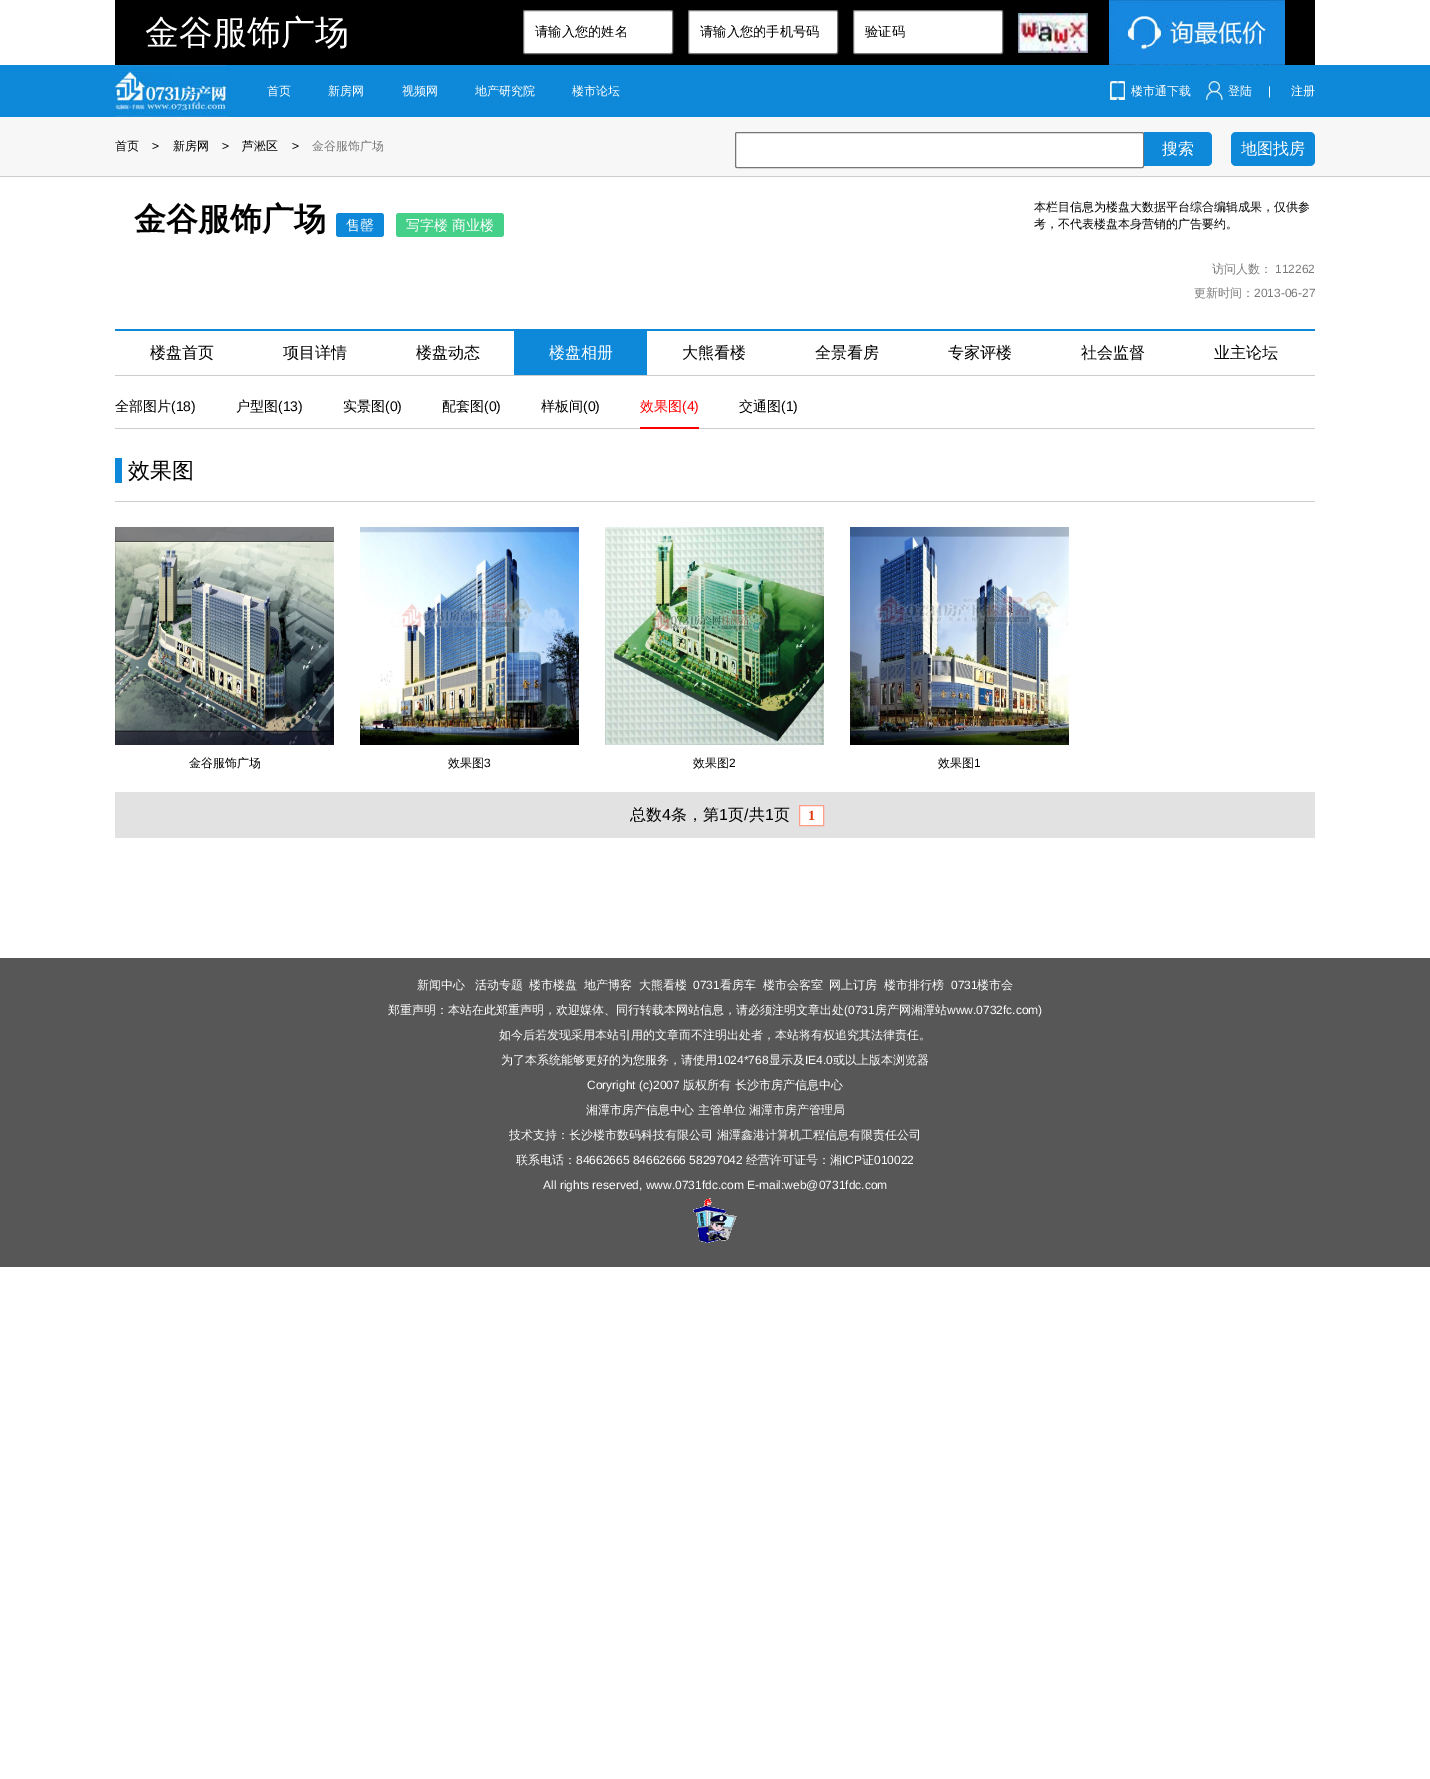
%!PS
<< /PageSize [1430 1779] >> setpagedevice
/rgb { 3 { 255 div 3 1 roll } repeat setrgbcolor } def
/font { [ exch dup neg 0 0 3 -1 roll 0 0 ] selectfont } def
/text { moveto show } def
/roundrect { 5 dict begin { /r /h /w /y /x } { exch def } forall
  x r add y moveto x w add y 2 copy h add r arct x w add y h add x 1 index r arct
  x y h add x y r arct x y 2 copy exch w add exch r arct closepath end } def
/picture { 5 dict begin { /h /w /y /x /name } { exch def } forall
  gsave x y translate w h scale
  w h 8 [w 0 0 h 0 0] name (r) file false 3 colorimage grestore end } def
0 1779 translate 1 -1 scale
4 setmiterlimit
255 255 255 rgb
0 0 1430 1779 rectfill
0 0 0 rgb
115 0 1200 65 rectfill
255 255 255 rgb
523.5 10.5 149 43 1.5 roundrect gsave fill grestore
118 118 118 rgb
stroke
255 255 255 rgb
688.5 10.5 149 43 1.5 roundrect gsave fill grestore
118 118 118 rgb
stroke
255 255 255 rgb
853.5 10.5 149 43 1.5 roundrect gsave fill grestore
118 118 118 rgb
stroke
(img_01.rgb) 1018 13 70 40 picture
(img_02.rgb) 1109 0 176 65 picture
14 137 217 rgb
0 65 1430 52 rectfill
(img_03.rgb) 115 65 112 52 picture
(img_04.rgb) 1109 81 17 19 picture
(img_05.rgb) 1206 81 17 19 picture
247 247 247 rgb
0 117 1430 59 rectfill
204 204 204 rgb
0 176 1430 1 rectfill
255 255 255 rgb
735.5 132.5 408 35 1.5 roundrect gsave fill grestore
118 118 118 rgb
stroke
14 137 217 rgb
1144 132 moveto 63 0 rlineto 3 0 5 2 5 5 rcurveto 0 24 rlineto 0 3 -2 5 -5 5 rcurveto -63 0 rlineto closepath fill
1231 132 84 34 5 roundrect fill
336 213 48 24 3 roundrect fill
68 208 137 rgb
396 213 108 24 3 roundrect fill
14 137 217 rgb
115 329 1200 2 rectfill
204 204 204 rgb
115 375 1200 1 rectfill
14 137 217 rgb
514 331 133 44 rectfill
204 204 204 rgb
115 428 1200 1 rectfill
255 0 0 rgb
640 427 59 2 rectfill
204 204 204 rgb
115 501 1200 1 rectfill
14 137 217 rgb
115 458 7 25 rectfill
(img_06.rgb) 115 527 219 218 picture
(img_07.rgb) 360 527 219 218 picture
(img_08.rgb) 605 527 219 218 picture
(img_09.rgb) 850 527 219 218 picture
226 226 226 rgb
115 792 1200 46 rectfill
255 255 255 rgb
799.5 805.5 moveto 24 0 rlineto 0 20 rlineto -24 0 rlineto closepath gsave fill grestore
255 157 138 rgb
stroke
87 87 87 rgb
0 958 1430 309 rectfill
(img_10.rgb) 693 1198 44 45 picture
/WenQuanYiZenHei-Medium 34 font
255 255 255 rgb
(金谷服饰广场) 145 44 text
/WenQuanYiZenHei-Medium 13.25 font
0 0 0 rgb
(请输入您的姓名) 535 36 text
(请输入您的手机号码) 700 36 text
(验证码) 865 36 text
/WenQuanYiZenHei-Medium 12 font
255 255 255 rgb
(首页) 267 95 text
(新房网) 328 95 text
(视频网) 402 95 text
(地产研究院) 475 95 text
(楼市论坛) 572 95 text
(楼市通下载) 1131 95 text
(登陆) 1228 95 text
/LiberationSans-Regular 12 font
(|) 1268 95 text
/WenQuanYiZenHei-Medium 12 font
(注册) 1291 95 text
0 0 0 rgb
(首页) 115 150 text
/LiberationSans-Regular 12 font
(>) 152 150 text
/WenQuanYiZenHei-Medium 12 font
(新房网) 173 150 text
/LiberationSans-Regular 12 font
(>) 222 150 text
/WenQuanYiZenHei-Medium 12 font
(芦淞区) 242 150 text
/LiberationSans-Regular 12 font
(>) 292 150 text
/WenQuanYiZenHei-Medium 12 font
122 122 122 rgb
(金谷服饰广场) 312 150 text
/WenQuanYiZenHei-Medium 16 font
255 255 255 rgb
(搜索) 1162 154 text
(地图找房) 1241 154 text
/WenQuanYiZenHei-Bold 32 font
0 0 0 rgb
(金谷服饰广场) 134 230 text
/WenQuanYiZenHei-Medium 14 font
255 255 255 rgb
(售罄) 346 230 text
(写字楼 商业楼) 406 230 text
/WenQuanYiZenHei-Medium 12 font
0 0 0 rgb
(本栏目信息为楼盘大数据平台综合编辑成果，仅供参) 1034 211 text
(考，不代表楼盘本身营销的广告要约。) 1034 228 text
122 122 122 rgb
(访问人数：) 1212 273 text
/LiberationSans-Regular 12 font
(112262) 1275 273 text
/WenQuanYiZenHei-Medium 12 font
(更新时间：) 1194 297 text
/LiberationSans-Regular 12 font
(2013-06-27) 1254 297 text
/WenQuanYiZenHei-Medium 16 font
0 0 0 rgb
(楼盘首页) 150 358 text
(项目详情) 283 358 text
(楼盘动态) 416 358 text
255 255 255 rgb
(楼盘相册) 549 358 text
0 0 0 rgb
(大熊看楼) 682 358 text
(全景看房) 815 358 text
(专家评楼) 948 358 text
(社会监督) 1081 358 text
(业主论坛) 1214 358 text
/WenQuanYiZenHei-Medium 14 font
(全部图片) 115 411 text
/LiberationSans-Regular 14 font
(\(18\)) 171 411 text
/WenQuanYiZenHei-Medium 14 font
(户型图) 236 411 text
/LiberationSans-Regular 14 font
(\(13\)) 278 411 text
/WenQuanYiZenHei-Medium 14 font
(实景图) 343 411 text
/LiberationSans-Regular 14 font
(\(0\)) 385 411 text
/WenQuanYiZenHei-Medium 14 font
(配套图) 442 411 text
/LiberationSans-Regular 14 font
(\(0\)) 484 411 text
/WenQuanYiZenHei-Medium 14 font
(样板间) 541 411 text
/LiberationSans-Regular 14 font
(\(0\)) 583 411 text
/WenQuanYiZenHei-Medium 14 font
255 0 0 rgb
(效果图) 640 411 text
/LiberationSans-Regular 14 font
(\(4\)) 682 411 text
/WenQuanYiZenHei-Medium 14 font
0 0 0 rgb
(交通图) 739 411 text
/LiberationSans-Regular 14 font
(\(1\)) 781 411 text
/WenQuanYiZenHei-Medium 22 font
(效果图) 128 478 text
/WenQuanYiZenHei-Medium 12 font
(金谷服饰广场) 189 767 text
(效果图) 448 767 text
/LiberationSans-Regular 12 font
(3) 484 767 text
/WenQuanYiZenHei-Medium 12 font
(效果图) 693 767 text
/LiberationSans-Regular 12 font
(2) 729 767 text
/WenQuanYiZenHei-Medium 12 font
(效果图) 938 767 text
/LiberationSans-Regular 12 font
(1) 974 767 text
/WenQuanYiZenHei-Medium 16 font
(总数) 630 820 text
/LiberationSans-Regular 16 font
(4) 662 820 text
/WenQuanYiZenHei-Medium 16 font
(条，第) 671 820 text
/LiberationSans-Regular 16 font
(1) 719 820 text
/WenQuanYiZenHei-Medium 16 font
(页) 728 820 text
/LiberationSans-Regular 16 font
(/) 744 820 text
/WenQuanYiZenHei-Medium 16 font
(共) 749 820 text
/LiberationSans-Regular 16 font
(1) 765 820 text
/WenQuanYiZenHei-Medium 16 font
(页) 774 820 text
/LiberationSerif-Bold 14 font
223 58 11 rgb
(1) 808 820 text
/WenQuanYiZenHei-Medium 12 font
255 255 255 rgb
(新闻中心) 417 989 text
(活动专题) 475 989 text
(楼市楼盘) 529 989 text
(地产博客) 584 989 text
(大熊看楼) 639 989 text
/LiberationSans-Regular 12 font
(0731) 693 989 text
/WenQuanYiZenHei-Medium 12 font
(看房车) 720 989 text
(楼市会客室) 763 989 text
(网上订房) 829 989 text
(楼市排行榜) 884 989 text
/LiberationSans-Regular 12 font
(0731) 951 989 text
/WenQuanYiZenHei-Medium 12 font
(楼市会) 977 989 text
(郑重声明：本站在此郑重声明，欢迎媒体、同行转载本网站信息，请必须注明文章出处) 388 1014 text
/LiberationSans-Regular 12 font
(\(0731) 844 1014 text
/WenQuanYiZenHei-Medium 12 font
(房产网湘潭站) 875 1014 text
/LiberationSans-Regular 12 font
(www.0732fc.com\)) 947 1014 text
/WenQuanYiZenHei-Medium 12 font
(如今后若发现采用本站引用的文章而不注明出处者，本站将有权追究其法律责任。) 499 1039 text
(为了本系统能够更好的为您服务，请使用) 501 1064 text
/LiberationSans-Regular 12 font
(1024*768) 717 1064 text
/WenQuanYiZenHei-Medium 12 font
(显示及) 769 1064 text
/LiberationSans-Regular 12 font
(IE4.0) 805 1064 text
/WenQuanYiZenHei-Medium 12 font
(或以上版本浏览器) 833 1064 text
/LiberationSans-Regular 12 font
(Coryright \(c\)2007) 587 1089 text
/WenQuanYiZenHei-Medium 12 font
(版权所有 长沙市房产信息中心) 683 1089 text
(湘潭市房产信息中心 主管单位 湘潭市房产管理局) 586 1114 text
(技术支持：长沙楼市数码科技有限公司 湘潭鑫港计算机工程信息有限责任公司) 509 1139 text
(联系电话：) 516 1164 text
/LiberationSans-Regular 12 font
(84662665 84662666 58297042) 576 1164 text
/WenQuanYiZenHei-Medium 12 font
(经营许可证号：湘) 746 1164 text
/LiberationSans-Regular 12 font
(ICP) 842 1164 text
/WenQuanYiZenHei-Medium 12 font
(证) 862 1164 text
/LiberationSans-Regular 12 font
(010022) 874 1164 text
(All rights reserved, www.0731fdc.com E-mail:web@0731fdc.com) 543 1189 text
showpage
